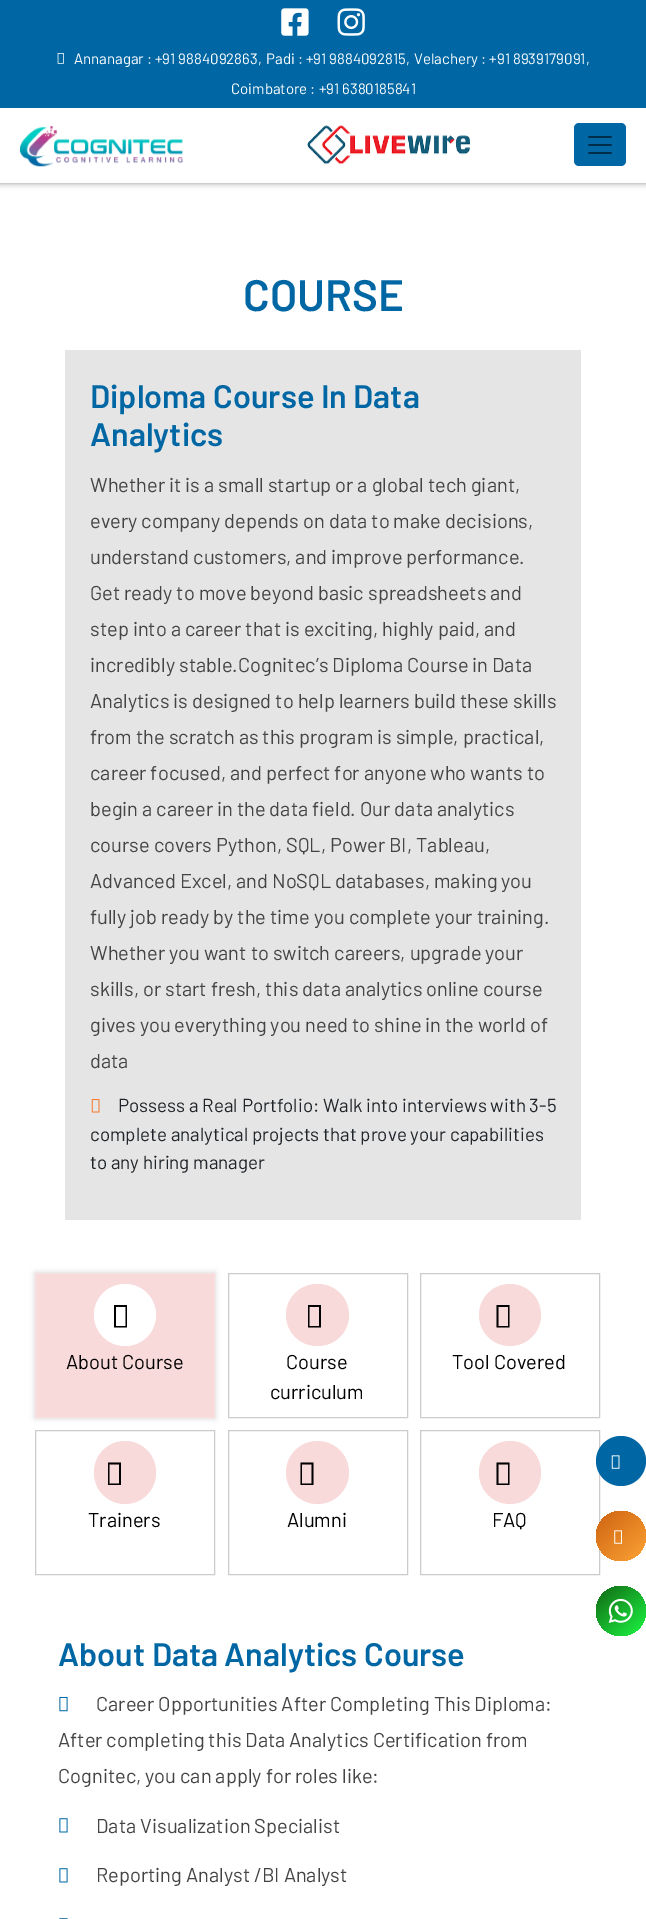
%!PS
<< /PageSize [646 1919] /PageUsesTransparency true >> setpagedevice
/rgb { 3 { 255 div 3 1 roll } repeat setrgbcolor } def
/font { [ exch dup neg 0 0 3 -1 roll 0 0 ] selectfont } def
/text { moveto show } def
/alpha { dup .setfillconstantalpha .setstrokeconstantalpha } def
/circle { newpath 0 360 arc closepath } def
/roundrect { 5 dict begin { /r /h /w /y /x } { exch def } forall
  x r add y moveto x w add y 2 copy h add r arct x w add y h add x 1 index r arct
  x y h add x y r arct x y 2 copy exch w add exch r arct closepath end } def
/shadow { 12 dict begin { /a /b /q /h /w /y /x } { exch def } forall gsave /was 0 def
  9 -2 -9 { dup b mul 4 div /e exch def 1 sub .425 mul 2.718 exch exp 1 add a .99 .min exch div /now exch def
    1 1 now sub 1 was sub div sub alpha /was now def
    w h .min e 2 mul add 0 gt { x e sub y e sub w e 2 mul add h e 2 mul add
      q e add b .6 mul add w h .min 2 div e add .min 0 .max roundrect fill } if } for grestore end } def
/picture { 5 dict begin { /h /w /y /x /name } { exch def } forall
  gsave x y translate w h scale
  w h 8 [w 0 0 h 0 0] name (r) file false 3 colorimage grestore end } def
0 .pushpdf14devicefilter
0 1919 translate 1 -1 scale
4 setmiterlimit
255 255 255 rgb
0 0 646 1919 rectfill
136 136 136 rgb
0 0 646 183 0 3 1 shadow
255 255 255 rgb
0 108 646 75 rectfill
0 103 164 rgb
0 0 646 108 rectfill
(img_01.rgb) 281 8 28 28 picture
(img_02.rgb) 337 8 28 28 picture
(img_03.rgb) 57 53 7 11 picture
(img_04.rgb) 20 126 163 41 picture
(img_05.rgb) 307 125 163 40 picture
574 123 52 43 5 roundrect fill
(img_06.rgb) 588 136 24 18 picture
229 229 229 rgb
65 350 516 870 rectfill
(img_07.rgb) 91 1099 9 14 picture
167 168 173 rgb
35 1273 180 145 0 3 0.53 shadow
248 218 218 rgb
35.5 1273.5 moveto 179 0 rlineto 0 144 rlineto -179 0 rlineto closepath gsave fill grestore
249 225 225 rgb
stroke
255 255 255 rgb
125 1315 31 circle fill
0 0 0 rgb
114 1327.5 moveto 0 -22.5 rlineto 13 0 rlineto 0 22.5 rlineto closepath 116 1326 moveto 9.5 0 rlineto 0 -19 rlineto -9.5 0 rlineto closepath fill
204 204 204 rgb
228.5 1273.5 179 144 rectstroke
248 218 218 rgb
286 1284 63 62 31 roundrect fill
0 0 0 rgb
308 1327.5 moveto 0 -22.5 rlineto 13 0 rlineto 0 22.5 rlineto closepath 309.5 1326 moveto 9.5 0 rlineto 0 -19 rlineto -9.5 0 rlineto closepath fill
204 204 204 rgb
420.5 1273.5 179 144 rectstroke
248 218 218 rgb
510 1315 31 circle fill
0 0 0 rgb
496.5 1327.5 moveto 0 -22.5 rlineto 13 0 rlineto 0 22.5 rlineto closepath 498.5 1326 moveto 9.5 0 rlineto 0 -19 rlineto -9.5 0 rlineto closepath fill
204 204 204 rgb
35.5 1430.5 179 144 rectstroke
248 218 218 rgb
94 1441 62 63 31 roundrect fill
0 0 0 rgb
108 1485 moveto 0 -22.5 rlineto 13 0 rlineto 0 22.5 rlineto closepath 109.5 1483.5 moveto 9.5 0 rlineto 0 -19 rlineto -9.5 0 rlineto closepath fill
204 204 204 rgb
228.5 1430.5 179 144 rectstroke
248 218 218 rgb
317.5 1472.5 31.5 circle fill
0 0 0 rgb
300.5 1485 moveto 0 -22.5 rlineto 13 0 rlineto 0 22.5 rlineto closepath 302 1483.5 moveto 9.5 0 rlineto 0 -19 rlineto -9.5 0 rlineto closepath fill
204 204 204 rgb
420.5 1430.5 179 144 rectstroke
248 218 218 rgb
479 1441 62 63 31 roundrect fill
0 0 0 rgb
496.5 1485 moveto 0 -22.5 rlineto 13 0 rlineto 0 22.5 rlineto closepath 498.5 1483.5 moveto 9.5 0 rlineto 0 -19 rlineto -9.5 0 rlineto closepath fill
(img_08.rgb) 59 1696 9 16 picture
(img_09.rgb) 59 1818 9 15 picture
(img_09.rgb) 59 1868 9 15 picture
(img_10.rgb) 59 1918 9 1 picture
0 103 164 rgb
621 1461 25 circle fill
(img_11.rgb) 611 1455 9 14 picture
gsave 621 1536 25 circle clip newpath
<< /ShadingType 2 /ColorSpace /DeviceRGB /Coords [645 1562 597 1510] /Extend [true true] /Function << /FunctionType 2 /Domain [0 1] /C0 [0.988 0.639 0.208] /C1 [0.808 0.388 0.067] /N 1 >> >> shfill grestore
(img_12.rgb) 614 1530 8 14 picture
gsave 621 1611 25 circle clip newpath
<< /ShadingType 2 /ColorSpace /DeviceRGB /Coords [645 1637 597 1585] /Extend [true true] /Function << /FunctionType 2 /Domain [0 1] /C0 [0.11 0.969 0.263] /C1 [0.067 0.408 0.078] /N 1 >> >> shfill grestore
(img_13.rgb) 608 1598 25 25 picture
/Barlow-Regular 15 font
255 255 255 rgb
(Annanagar : +91 9884092863,) 74 64 text
(Padi : +91 9884092815,) 266 64 text
(Velachery : +91 8939179091,) 414 64 text
(Coimbatore : +91 6380185841) 231 94 text
/Barlow-SemiBold 44 font
0 103 164 rgb
(COURSE) 243 311 text
/Barlow-SemiBold 32.5 font
(Diploma Course In Data) 90 408 text
(Analytics) 90 446 text
/Barlow-Regular 20 font
68 68 68 rgb
(Whether it is a small startup or a global tech giant,) 90 492 text
(every company depends on data to make decisions,) 90 528 text
(understand customers, and improve performance.) 90 564 text
(Get ready to move beyond basic spreadsheets and) 90 600 text
(step into a career that is exciting, highly paid, and) 90 636 text
(incredibly stable.Cognitec’s Diploma Course in Data) 90 672 text
(Analytics is designed to help learners build these skills) 90 708 text
(from the scratch as this program is simple, practical,) 90 744 text
(career focused, and perfect for anyone who wants to) 90 780 text
(begin a career in the data field. Our data analytics) 90 816 text
(course covers Python, SQL, Power BI, Tableau,) 90 852 text
(Advanced Excel, and NoSQL databases, making you) 90 888 text
(fully job ready by the time you complete your training.) 90 924 text
(Whether you want to switch careers, upgrade your) 90 960 text
(skills, or start fresh, this data analytics online course) 90 996 text
(gives you everything you need to shine in the world of) 90 1032 text
(data) 90 1068 text
/Barlow-Regular 18.75 font
33 37 41 rgb
(Possess a Real Portfolio: Walk into interviews with 3-5) 118 1112 text
(complete analytical projects that prove your capabilities) 90 1141 text
(to any hiring manager) 90 1169 text
/Barlow-Regular 20 font
0 0 0 rgb
(About Course) 66 1369 text
(Course) 286 1369 text
(curriculum) 270 1399 text
(Tool Covered) 452 1369 text
(Trainers) 88 1527 text
(Alumni) 287 1527 text
(FAQ) 492 1527 text
/Barlow-SemiBold 32.5 font
0 103 164 rgb
(About Data Analytics Course) 58 1666 text
/Barlow-Regular 20 font
68 68 68 rgb
(Career Opportunities After Completing This Diploma:) 96 1711 text
(After completing this Data Analytics Certification from) 58 1747 text
(Cognitec, you can apply for roles like:) 58 1783 text
(Data Visualization Specialist) 96 1833 text
(Reporting Analyst /BI Analyst) 96 1882 text
.poppdf14devicefilter showpage
